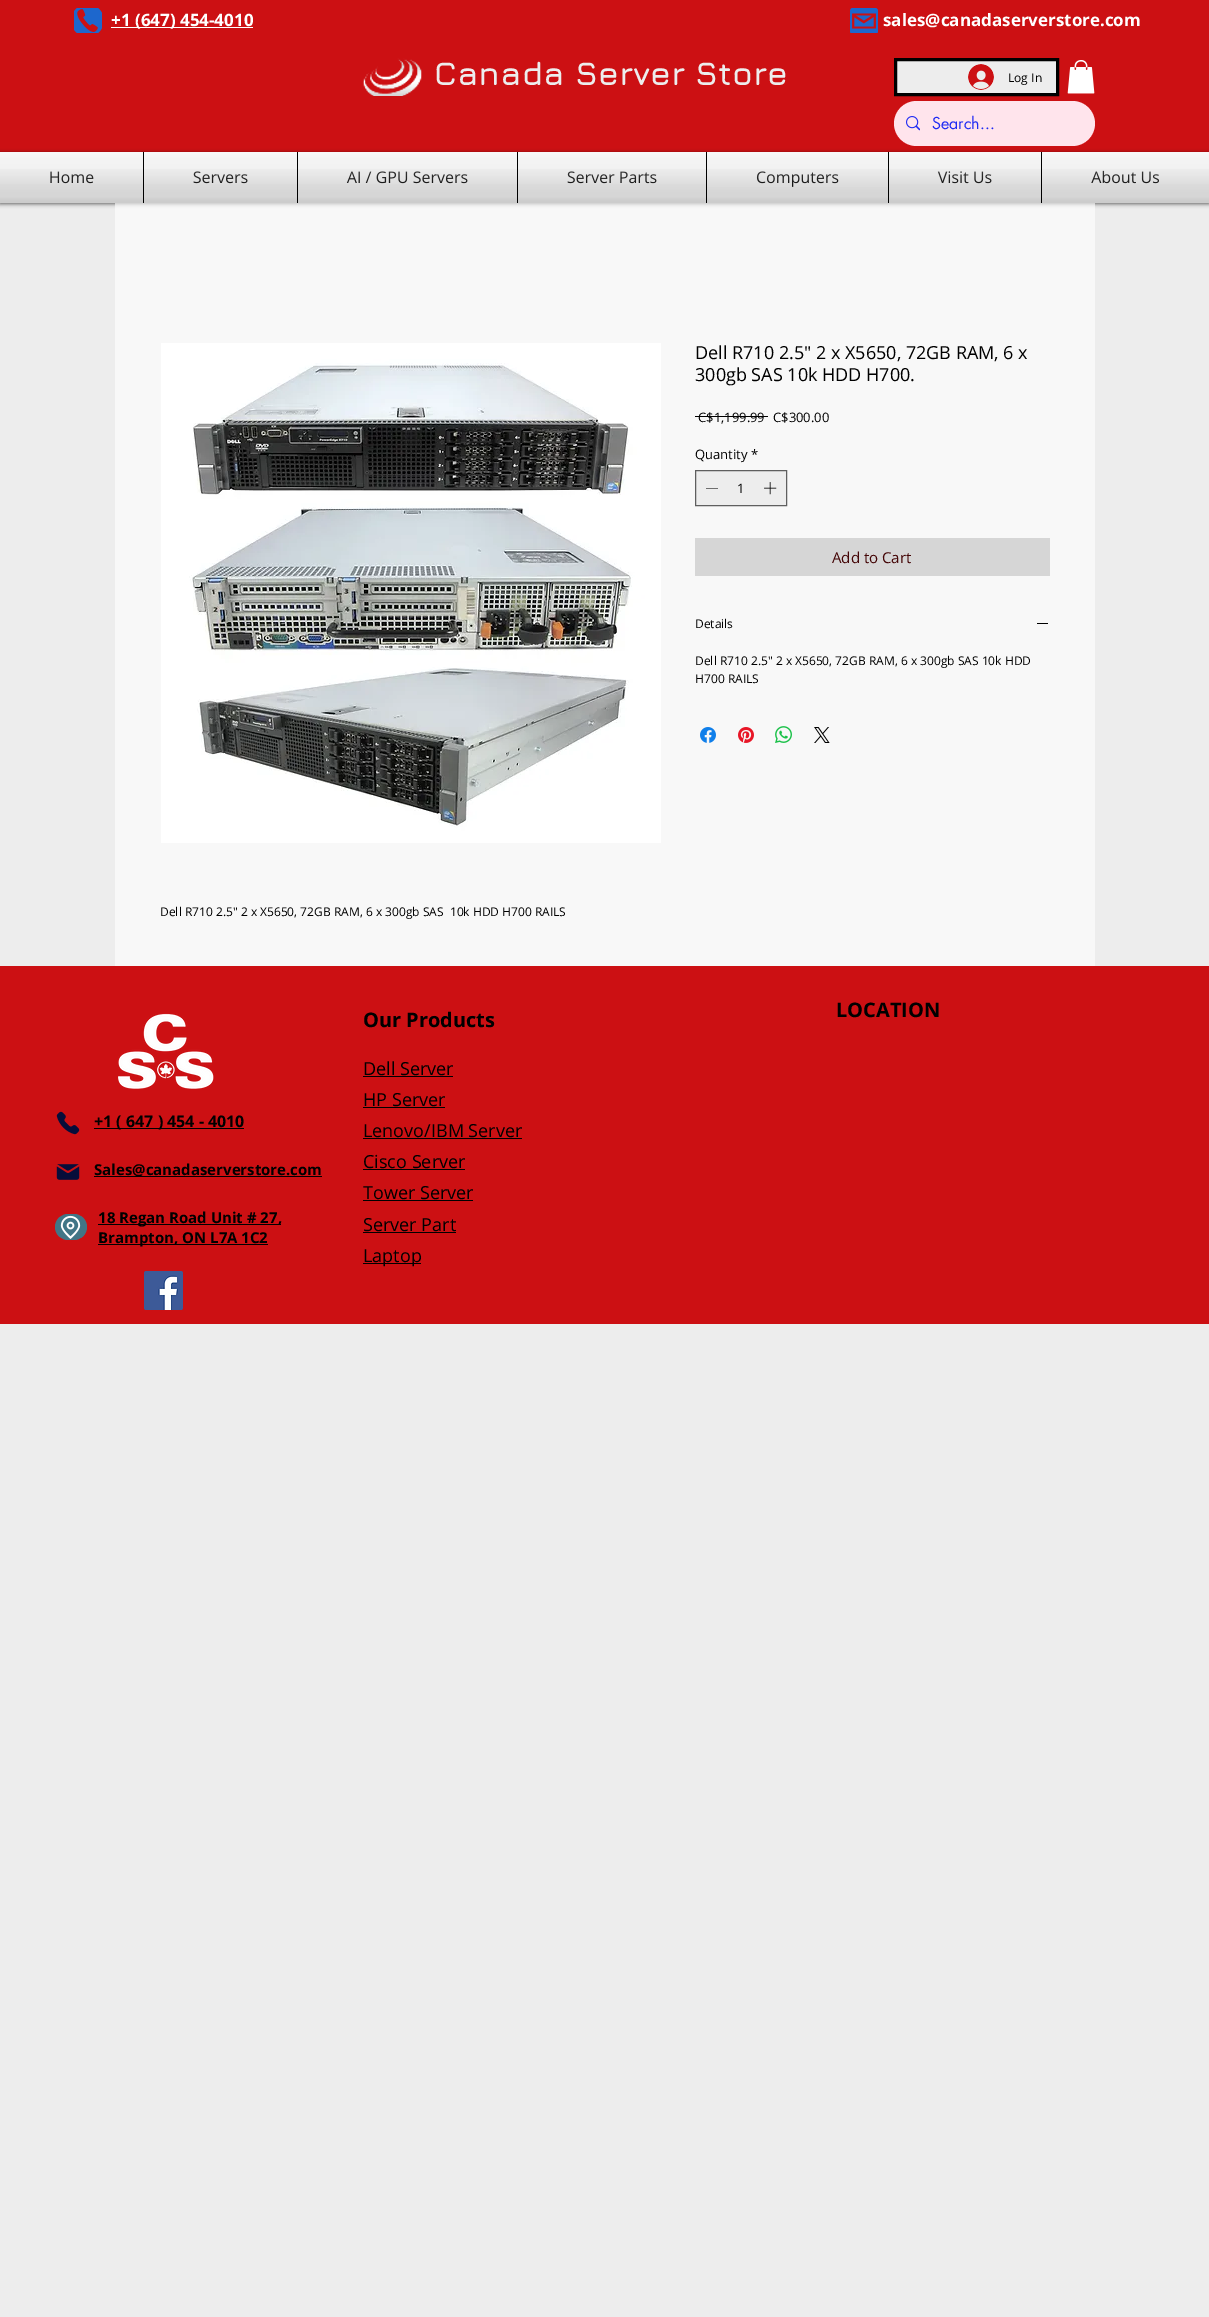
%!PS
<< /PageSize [1209 2317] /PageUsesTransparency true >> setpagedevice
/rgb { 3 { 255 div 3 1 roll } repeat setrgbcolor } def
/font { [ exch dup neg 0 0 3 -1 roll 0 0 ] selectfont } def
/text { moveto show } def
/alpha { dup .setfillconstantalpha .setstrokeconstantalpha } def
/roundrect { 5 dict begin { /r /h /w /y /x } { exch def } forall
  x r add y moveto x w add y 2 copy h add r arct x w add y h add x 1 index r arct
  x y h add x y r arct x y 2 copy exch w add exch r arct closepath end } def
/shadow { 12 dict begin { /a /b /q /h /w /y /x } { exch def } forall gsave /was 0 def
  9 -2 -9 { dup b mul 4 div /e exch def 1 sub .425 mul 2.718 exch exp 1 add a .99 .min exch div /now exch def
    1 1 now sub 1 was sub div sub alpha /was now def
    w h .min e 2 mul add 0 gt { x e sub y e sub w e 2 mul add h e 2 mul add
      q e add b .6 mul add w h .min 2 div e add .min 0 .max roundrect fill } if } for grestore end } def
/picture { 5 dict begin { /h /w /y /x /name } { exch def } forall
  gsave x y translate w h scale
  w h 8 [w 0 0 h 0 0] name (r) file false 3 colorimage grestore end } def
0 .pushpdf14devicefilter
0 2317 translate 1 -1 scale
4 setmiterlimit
237 237 237 rgb
0 0 1209 2317 rectfill
204 16 19 rgb
0 0 1209 152 rectfill
(img_01.rgb) 74 8 28 25 picture
255 255 255 rgb
111 27 142 1 rectfill
(img_02.rgb) 850 8 28 25 picture
(img_03.rgb) 363 58 59 38 picture
237 237 237 rgb
895.5 59.5 moveto 162 0 rlineto 0 35 rlineto -162 0 rlineto closepath gsave fill grestore
0 0 0 rgb
3 setlinewidth
stroke
(img_04.rgb) 968 64 26 26 picture
(img_05.rgb) 1067 60 28 34 picture
255 228 236 rgb
894 101 201 45 22.5 roundrect fill
(img_06.rgb) 906 116 14 15 picture
0 0 0 rgb
0 153 1209 51 0 2 0.6 shadow
237 237 237 rgb
0 152 143 51 rectfill
144 152 153 51 rectfill
0 0 0 rgb
143 152 1 51 rectfill
237 237 237 rgb
298 152 219 51 rectfill
0 0 0 rgb
297 152 1 51 rectfill
237 237 237 rgb
518 152 188 51 rectfill
0 0 0 rgb
517 152 1 51 rectfill
237 237 237 rgb
707 152 181 51 rectfill
0 0 0 rgb
706 152 1 51 rectfill
237 237 237 rgb
889 152 152 51 rectfill
0 0 0 rgb
888 152 1 51 rectfill
237 237 237 rgb
1042 152 167 51 rectfill
0 0 0 rgb
1041 152 1 51 rectfill
0.6 alpha
255 255 255 rgb
115 203 980 763 rectfill
1 alpha
0 0 0 rgb
695 416 73 1 rectfill
237 237 237 rgb
695.5 470.5 moveto 91 0 rlineto 0 35 rlineto -91 0 rlineto closepath gsave fill grestore
95 95 95 rgb
1 setlinewidth
stroke
0 0 0 rgb
718 488 moveto 0 0.5 rlineto -12 0 rlineto 0 -0.5 rlineto closepath eofill
(img_21.rgb) 764 482 13 13 picture
214 214 214 rgb
695 538 355 38 rectfill
0 0 0 rgb
1037 623 11 1 rectfill
(img_22.rgb) 700 727 16 16 picture
(img_23.rgb) 738 727 16 16 picture
(img_24.rgb) 775 726 17 17 picture
(img_25.rgb) 814 727 16 16 picture
(img_26.rgb) 161 343 500 500 picture
204 16 19 rgb
0 966 1209 358 rectfill
(img_27.rgb) 118 1013 96 76 picture
(img_28.rgb) 56 1111 24 24 picture
0 0 0 rgb
94 1128 150 1 rectfill
(img_29.rgb) 56 1164 24 16 picture
94 1176 228 1 rectfill
65 117 134 rgb
55 1214 32 26 13 roundrect fill
(img_30.rgb) 60 1215 21 24 picture
0 0 0 rgb
98 1224 183 1 rectfill
98 1244 170 1 rectfill
363 1076 90 1 rectfill
363 1107 82 1 rectfill
363 1138 159 1 rectfill
363 1169 102 1 rectfill
363 1200 110 1 rectfill
363 1232 93 1 rectfill
363 1263 58 1 rectfill
(img_31.rgb) 144 1271 39 39 picture
/OpenSans-Bold 17 font
255 255 255 rgb
(+1 \(647\) 454-4010) 111 26 text
(sales@canadaserverstore.com) 883 26 text
/Jura-Bold 33 font
237 237 237 rgb
(Canada Server Store) 434 85 text
/OpenSans-Regular 12 font
0 0 0 rgb
(Log In) 1008 82 text
/futura-Regular 16 font
31 43 243 rgb
(Search...) 932 129 text
/OpenSans-Regular 16 font
0 0 0 rgb
(Home) 49 183 text
(img_07.rgb) 0 152 143 32 picture
(img_08.rgb) 0 169 143 34 picture
(Servers) 193 183 text
(img_09.rgb) 144 152 153 32 picture
(img_10.rgb) 144 169 153 34 picture
(AI / GPU Servers) 347 183 text
(img_11.rgb) 298 152 219 32 picture
(img_12.rgb) 298 169 219 34 picture
(Server Parts) 567 183 text
(img_13.rgb) 518 152 188 32 picture
(img_14.rgb) 518 169 188 34 picture
(Computers) 756 183 text
(img_15.rgb) 707 152 181 35 picture
(img_16.rgb) 707 169 181 34 picture
(Visit Us) 938 183 text
(img_17.rgb) 889 152 152 32 picture
(img_18.rgb) 889 169 152 34 picture
(About Us) 1091 183 text
(img_19.rgb) 1042 152 167 32 picture
(img_20.rgb) 1042 169 167 34 picture
/OpenSans-Regular 18 font
(Dell R710 2.5" 2 x X5650, 72GB RAM, 6 x) 695 359 text
(300gb SAS 10k HDD H700.) 695 381 text
/OpenSans-Regular 13 font
(C$1,199.99) 698 422 text
(C$300.00) 773 422 text
(Quantity) 695 459 text
(*) 751 459 text
(1) 737 493 text
/OpenSans-Regular 15 font
68 5 6 rgb
(Add to Cart) 832 563 text
/OpenSans-Regular 12 font
0 0 0 rgb
(Details) 695 628 text
(Dell R710 2.5" 2 x X5650, 72GB RAM, 6 x 300gb SAS 10k HDD) 695 665 text
(H700 RAILS) 695 683 text
(Dell R710 2.5" 2 x X5650, 72GB RAM, 6 x 300gb SAS  10k HDD H700 RAILS) 160 916 text
/OpenSans-Bold 16 font
(+1 \( 647 \) 454 - 4010) 94 1127 text
/OpenSans-Bold 15 font
(Sales@canadaserverstore.com) 94 1175 text
(18 Regan Road Unit # 27,) 98 1223 text
(Brampton, ON L7A 1C2) 98 1243 text
/OpenSans-Bold 20 font
(Our Products) 363 1027 text
/OpenSans-Regular 18 font
(Dell Server) 363 1075 text
(HP Server) 363 1106 text
(Lenovo/IBM Server) 363 1137 text
(Cisco Server) 363 1168 text
(Tower Server) 363 1199 text
(Server Part) 363 1231 text
(Laptop) 363 1262 text
/OpenSans-Bold 20 font
(LOCATION) 836 1017 text
.poppdf14devicefilter showpage
